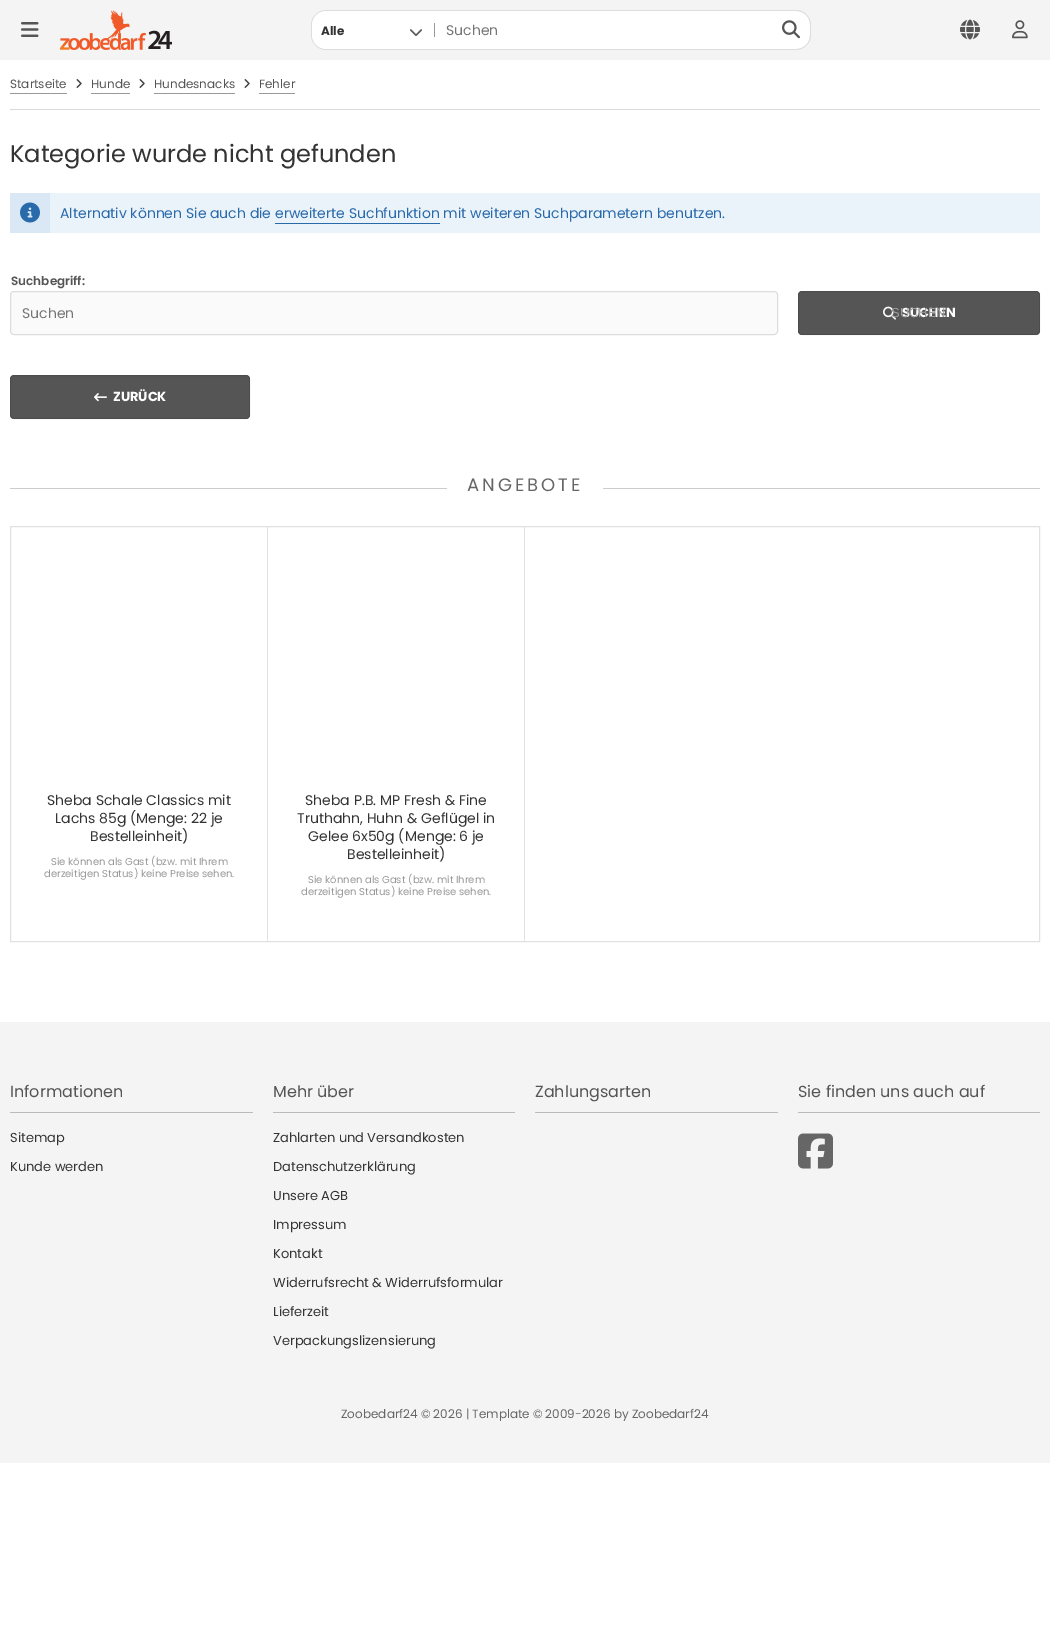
%!PS
<< /PageSize [1060 1629] /PageUsesTransparency true >> setpagedevice
/rgb { 3 { 255 div 3 1 roll } repeat setrgbcolor } def
/font { [ exch dup neg 0 0 3 -1 roll 0 0 ] selectfont } def
/text { moveto show } def
/alpha { dup .setfillconstantalpha .setstrokeconstantalpha } def
/roundrect { 5 dict begin { /r /h /w /y /x } { exch def } forall
  x r add y moveto x w add y 2 copy h add r arct x w add y h add x 1 index r arct
  x y h add x y r arct x y 2 copy exch w add exch r arct closepath end } def
/picture { 5 dict begin { /h /w /y /x /name } { exch def } forall
  gsave x y translate w h scale
  w h 8 [w 0 0 h 0 0] name (r) file false 3 colorimage grestore end } def
0 .pushpdf14devicefilter
0 1629 translate 1 -1 scale
4 setmiterlimit
255 255 255 rgb
0 0 1060 1629 rectfill
244 244 244 rgb
0 0 1050 60 rectfill
(img_01.rgb) 21 22 18 15 picture
(img_02.rgb) 60 10 112 40 picture
255 255 255 rgb
326 11 moveto 105 0 rlineto 0 38 rlineto -105 0 rlineto -7.5 0 -14 -6.5 -14 -14 rcurveto 0 -10 rlineto 0 -7.5 6.5 -14 14 -14 rcurveto closepath fill
221 221 221 rgb
326 10 moveto 105 0 rlineto 0 40 rlineto -105 0 rlineto -8 0 -15 -7 -15 -15 rcurveto 0 -10 rlineto 0 -8 7 -15 15 -15 rcurveto closepath 326 11 moveto 105 0 rlineto 0 38 rlineto -105 0 rlineto -8 0 -14 -6 -14 -14 rcurveto 0 -10 rlineto 0 -8 6 -14 14 -14 rcurveto closepath eofill
255 255 255 rgb
327 11 moveto 104 0 rlineto 0 38 rlineto -104 0 rlineto -8.5 0 -15 -6.5 -15 -15 rcurveto 0 -8 rlineto 0 -8.5 6.5 -15 15 -15 rcurveto closepath fill
(img_03.rgb) 410 29 12 7 picture
431 11 340 38 rectfill
153 153 153 rgb
434 23 1 14 rectfill
221 221 221 rgb
431 10 340 1 rectfill
431 49 340 1 rectfill
255 255 255 rgb
771 11 moveto 25 0 rlineto 7.5 0 14 6.5 14 14 rcurveto 0 10 rlineto 0 7.5 -6.5 14 -14 14 rcurveto -25 0 rlineto closepath fill
221 221 221 rgb
771 10 moveto 25 0 rlineto 8 0 15 7 15 15 rcurveto 0 10 rlineto 0 8 -7 15 -15 15 rcurveto -25 0 rlineto closepath 771 11 moveto 25 0 rlineto 8 0 14 6 14 14 rcurveto 0 10 rlineto 0 8 -6 14 -14 14 rcurveto -25 0 rlineto closepath eofill
(img_04.rgb) 782 20 18 19 picture
(img_05.rgb) 960 19 20 21 picture
(img_06.rgb) 1012 20 16 19 picture
217 217 217 rgb
10 109 1030 1 rectfill
153 153 153 rgb
10 93 57 1 rectfill
(img_07.rgb) 76 79 6 9 picture
91 93 39 1 rectfill
(img_07.rgb) 139 79 6 9 picture
154 93 81 1 rectfill
(img_07.rgb) 244 79 6 9 picture
259 93 36 1 rectfill
234 242 250 rgb
50 193 990 40 rectfill
218 232 245 rgb
10 193 40 40 rectfill
(img_08.rgb) 20 202 20 21 picture
41 106 171 rgb
275 223 165 1 rectfill
250 250 250 rgb
10.5 291.5 767 43 3.5 roundrect gsave fill grestore
221 221 221 rgb
stroke
85 85 85 rgb
798 291 242 44 4 roundrect fill
0.1 alpha
0 0 0 rgb
798.5 291.5 241 43 3.5 roundrect stroke
1 alpha
(img_09.rgb) 883 306 13 14 picture
85 85 85 rgb
10 375 240 44 4 roundrect fill
0.1 alpha
0 0 0 rgb
10.5 375.5 239 43 3.5 roundrect stroke
1 alpha
(img_10.rgb) 94 393 13 9 picture
204 204 204 rgb
10 488 1030 1 rectfill
255 255 255 rgb
447 488 156 1 rectfill
225 225 225 rgb
10.5 526.5 1029 415 rectstroke
267 527 1 414 rectfill
524 527 1 414 rectfill
244 244 244 rgb
0 1022 1050 441 rectfill
187 187 187 rgb
10 1112 243 1 rectfill
273 1112 242 1 rectfill
535 1112 243 1 rectfill
798 1112 242 1 rectfill
(img_11.rgb) 798 1133 35 36 picture
/Poppins-Bold 12 font
51 51 51 rgb
(Alle) 321 35 text
/Poppins-Regular 14 font
117 117 117 rgb
(Suchen) 446 35 text
/Poppins-Regular 12 font
85 85 85 rgb
(Startseite) 10 88 text
(Hunde) 91 88 text
(Hundesnacks) 154 88 text
(Fehler) 259 88 text
/Poppins-Regular 24 font
51 51 51 rgb
(Kategorie wurde nicht gefunden) 10 162 text
/Poppins-Regular 14 font
41 106 171 rgb
(Alternativ können Sie auch die erweiterte Suchfunktion mit weiteren Suchparametern benutzen.) 60 218 text
/Poppins-SemiBold 12 font
85 85 85 rgb
(Suchbegriff:) 11 285 text
/Poppins-Regular 14 font
117 117 117 rgb
(Suchen) 22 318 text
/Poppins-Bold 13 font
255 255 255 rgb
(SUCHEN) 902 317 text
/LiberationSans-Regular 13 font
159 159 159 rgb
(SUCHEN) 891 317 text
/Poppins-Bold 13 font
255 255 255 rgb
(ZURÜCK) 113 401 text
/Poppins-Regular 18 font
102 102 102 rgb
467 491 moveto 3 0 (ANGEBOTE) ashow
/Poppins-Regular 14 font
51 51 51 rgb
(Sheba Schale Classics mit) 47 805 text
(Lachs 85g \(Menge: 22 je) 55 823 text
(Bestelleinheit\)) 90 841 text
/Poppins-Regular 10 font
153 153 153 rgb
(Sie können als Gast \(bzw. mit Ihrem) 51 865 text
(derzeitigen Status\) keine Preise sehen.) 44 877 text
/Poppins-Regular 14 font
51 51 51 rgb
(Sheba P.B. MP Fresh & Fine) 305 805 text
(Truthahn, Huhn & Geflügel in) 297 823 text
(Gelee 6x50g \(Menge: 6 je) 308 841 text
(Bestelleinheit\)) 347 859 text
/Poppins-Regular 10 font
153 153 153 rgb
(Sie können als Gast \(bzw. mit Ihrem) 308 883 text
(derzeitigen Status\) keine Preise sehen.) 301 895 text
/Poppins-Regular 16 font
85 85 85 rgb
(Informationen) 10 1097 text
/Poppins-Regular 13 font
51 51 51 rgb
(Sitemap) 10 1142 text
(Kunde werden) 10 1171 text
/Poppins-Regular 16 font
85 85 85 rgb
(Mehr über) 273 1097 text
/Poppins-Regular 13 font
51 51 51 rgb
(Zahlarten und Versandkosten) 273 1142 text
(Datenschutzerklärung) 273 1171 text
(Unsere AGB) 273 1200 text
(Impressum) 273 1229 text
(Kontakt) 273 1258 text
(Widerrufsrecht & Widerrufsformular) 273 1287 text
(Lieferzeit) 273 1316 text
(Verpackungslizensierung) 273 1345 text
/Poppins-Regular 16 font
85 85 85 rgb
(Zahlungsarten) 535 1097 text
(Sie finden uns auch auf) 798 1097 text
/Poppins-Regular 12 font
102 102 102 rgb
(Zoobedarf24 © 2026 | Template © 2009-2026 by Zoobedarf24) 341 1418 text
.poppdf14devicefilter showpage
